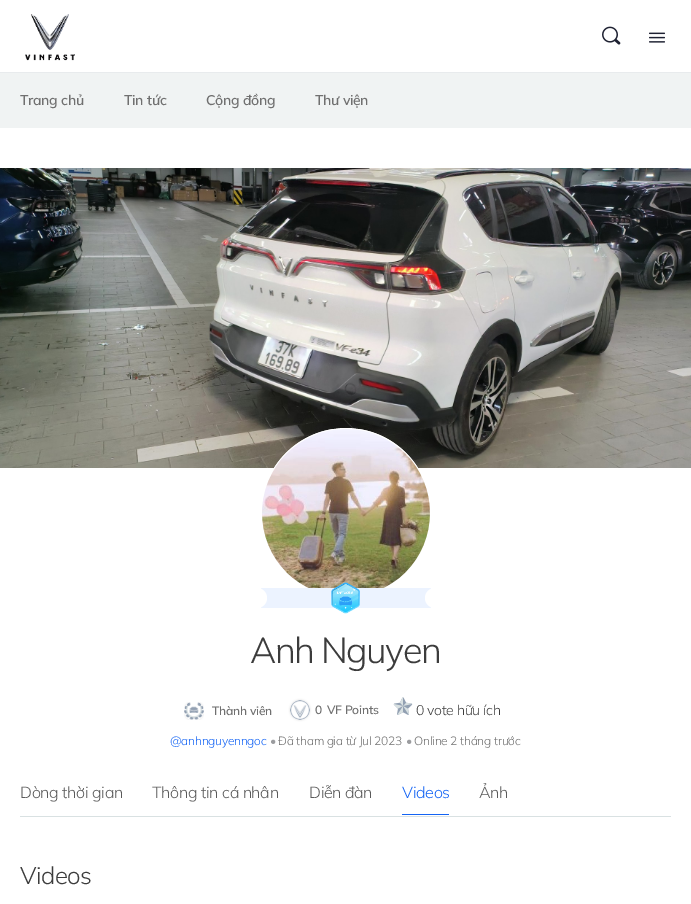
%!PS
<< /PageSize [691 904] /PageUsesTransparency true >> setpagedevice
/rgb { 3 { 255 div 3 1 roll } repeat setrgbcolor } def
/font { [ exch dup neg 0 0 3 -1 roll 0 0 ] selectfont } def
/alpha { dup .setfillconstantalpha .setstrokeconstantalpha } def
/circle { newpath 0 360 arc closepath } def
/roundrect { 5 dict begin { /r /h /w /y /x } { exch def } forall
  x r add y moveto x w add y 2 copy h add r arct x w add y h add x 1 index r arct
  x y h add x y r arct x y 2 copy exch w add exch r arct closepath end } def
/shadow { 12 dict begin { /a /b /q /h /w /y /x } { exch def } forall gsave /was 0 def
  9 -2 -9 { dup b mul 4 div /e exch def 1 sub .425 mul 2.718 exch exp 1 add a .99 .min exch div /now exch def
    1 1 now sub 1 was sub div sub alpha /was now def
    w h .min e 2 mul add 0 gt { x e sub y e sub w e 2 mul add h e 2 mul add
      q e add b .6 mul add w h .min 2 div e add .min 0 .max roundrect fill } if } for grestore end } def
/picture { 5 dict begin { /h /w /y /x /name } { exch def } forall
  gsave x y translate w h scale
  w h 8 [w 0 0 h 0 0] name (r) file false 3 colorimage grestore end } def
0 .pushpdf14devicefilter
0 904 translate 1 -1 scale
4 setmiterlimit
255 255 255 rgb
0 0 691 904 rectfill
232 235 237 rgb
0 72 691 1 rectfill
(img_01.rgb) 25 14 50 47 picture
(img_02.rgb) 602 26 19 19 picture
(img_03.rgb) 649 32 16 11 picture
240 243 243 rgb
0 73 691 55 rectfill
(img_04.rgb) 0 168 691 300 picture
255 255 255 rgb
346 513 84.5 circle gsave fill grestore
stroke
(img_05.rgb) 262 429 168 159 picture
236 243 255 rgb
261 588 170 20 rectfill
(img_06.rgb) 331 582 29 32 picture
255 255 255 rgb
261 588 moveto -4 0 rlineto 5.5 0 10 4.5 10 10 rcurveto 0 5.5 -4.5 10 -10 10 rcurveto 4 0 rlineto closepath fill
435 588 moveto -4 0 rlineto 0 20 rlineto 4 0 rlineto -5.5 0 -10 -4.5 -10 -10 rcurveto 0 -5.5 4.5 -10 10 -10 rcurveto closepath fill
(img_07.rgb) 184 702 20 18 picture
0 0 0 rgb
290 700 20 20 10 1 0.13 shadow
(img_08.rgb) 290 700 20 20 picture
(img_09.rgb) 393 697 20 18 picture
217 225 226 rgb
20 816 651 1 rectfill
20 100 244 rgb
402 814 47 1 rectfill
/Mulish-SemiBold 14 font
112 112 112 rgb
20 105 moveto -0.3 0 (Trang chủ) ashow
124 105 moveto -0.3 0 (Tin tức) ashow
206 105 moveto -0.3 0 (Cộng đồng) ashow
315 105 moveto -0.3 0 (Thư viện) ashow
/Mulish-Light 36 font
60 60 60 rgb
250 663 moveto -1.5 0 (Anh Nguyen) ashow
/Mulish-SemiBold 12 font
112 112 112 rgb
212 715 moveto -0.25 0 (Thành viên) ashow
315 714 moveto -0.25 0 (0) ashow
327 714 moveto -0.25 0 (VF Points) ashow
/Mulish-Light 14 font
60 60 60 rgb
416 715 moveto -0.3 0 (0 vote hữu ích) ashow
/Mulish-Light 12 font
20 100 244 rgb
170 745 moveto -0.25 0 (@anhnguyenngoc) ashow
155 156 159 rgb
270 745 moveto -0.25 0 (•) ashow
112 112 112 rgb
278 745 moveto -0.25 0 (Đã tham gia từ Jul 2023) ashow
155 156 159 rgb
406 745 moveto -0.25 0 (•) ashow
112 112 112 rgb
414 745 moveto -0.25 0 (Online 2 tháng trước) ashow
/Mulish-Light 16 font
90 90 90 rgb
20 798 moveto -0.3 0 (Dòng thời gian) ashow
152 798 moveto -0.3 0 (Thông tin cá nhân) ashow
309 798 moveto -0.3 0 (Diễn đàn) ashow
20 100 244 rgb
402 798 moveto -0.3 0 (Videos) ashow
90 90 90 rgb
479 798 moveto -0.3 0 (Ảnh) ashow
/Mulish-Light 24 font
60 60 60 rgb
20 884 moveto -0.5 0 (Videos) ashow
.poppdf14devicefilter showpage
